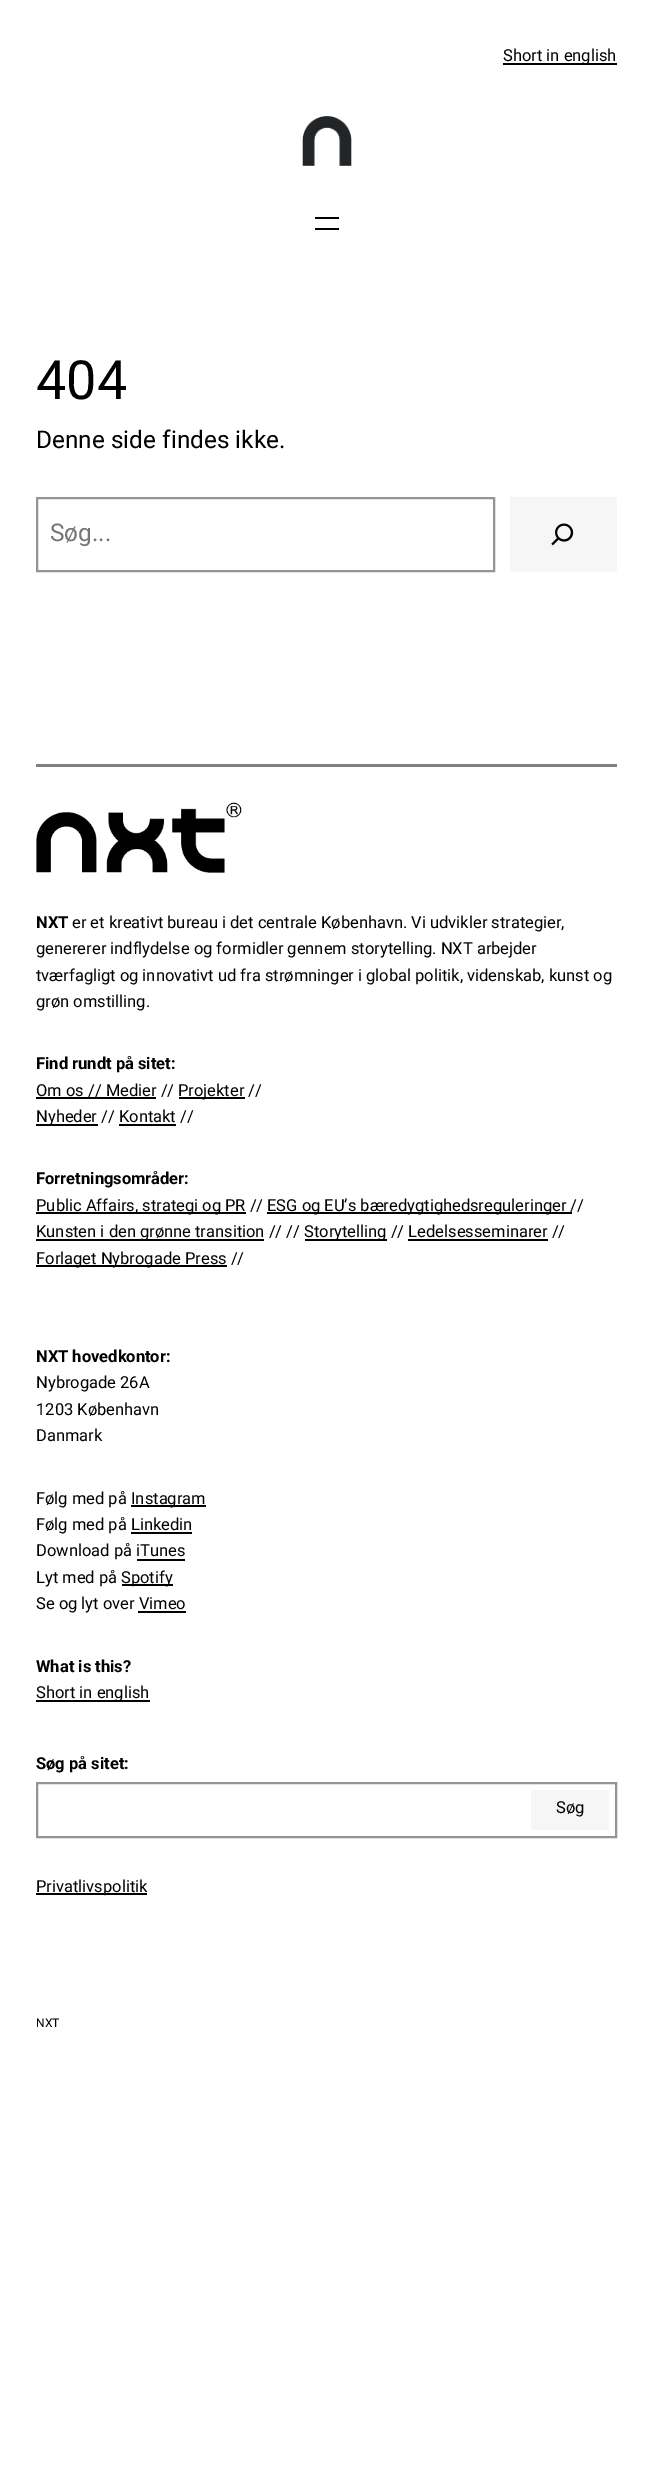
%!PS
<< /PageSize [652 2480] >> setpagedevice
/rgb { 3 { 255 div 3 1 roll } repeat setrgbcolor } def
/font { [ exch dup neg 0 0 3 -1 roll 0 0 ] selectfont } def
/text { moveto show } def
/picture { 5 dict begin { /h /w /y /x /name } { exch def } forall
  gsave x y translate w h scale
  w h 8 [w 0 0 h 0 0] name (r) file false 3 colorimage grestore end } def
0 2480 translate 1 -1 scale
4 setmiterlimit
255 255 255 rgb
0 0 652 2480 rectfill
0 0 0 rgb
503 63 114 2 rectfill
(img_01.rgb) 302 116 50 50 picture
315 217 24 2 rectfill
315 228 24 2 rectfill
148 148 148 rgb
2 setlinewidth
37 498 457 73 rectstroke
246 246 246 rgb
510 497 107 75 rectfill
(img_02.rgb) 551 523 23 23 picture
128 128 128 rgb
36 764 581 3 rectfill
(img_03.rgb) 36 802 206 71 picture
0 0 0 rgb
36 1097 120 2 rectfill
179 1097 66 2 rectfill
36 1124 62 2 rectfill
119 1124 57 2 rectfill
36 1212 210 2 rectfill
267 1212 305 2 rectfill
36 1239 228 2 rectfill
305 1239 82 2 rectfill
408 1239 140 2 rectfill
36 1265 191 2 rectfill
131 1505 75 2 rectfill
131 1532 61 2 rectfill
137 1559 48 2 rectfill
122 1584 51 2 rectfill
138 1611 48 2 rectfill
36 1700 114 2 rectfill
148 148 148 rgb
37 1783 579 54 rectstroke
246 246 246 rgb
531 1790 78 40 rectfill
0 0 0 rgb
36 1893 111 2 rectfill
/Roboto-Regular 16.5 font
(Short in english) 503 61 text
/Roboto-Regular 54 font
(404) 36 399 text
/Roboto-Regular 24.4 font
(Denne side findes ikke.) 36 448 text
117 117 117 rgb
(Søg...) 50 541 text
/Roboto-Bold 16.5 font
0 0 0 rgb
(NXT) 36 928 text
/Roboto-Regular 16.5 font
(er et kreativt bureau i det centrale København. Vi udvikler strategier,) 72 928 text
(genererer indflydelse og formidler gennem storytelling. NXT arbejder) 36 954 text
(tværfagligt og innovativt ud fra strømninger i global politik, videnskab, kunst og) 36 981 text
(grøn omstilling.) 36 1007 text
/Roboto-Bold 16.5 font
(Find rundt på sitet:) 36 1069 text
/Roboto-Regular 16.5 font
(Om os // Medier //) 36 1096 text
(Projekter //) 178 1096 text
(Nyheder // Kontakt //) 36 1122 text
/Roboto-Bold 16.5 font
(Forretningsområder:) 36 1184 text
/Roboto-Regular 16.5 font
(Public Affairs, strategi og PR //) 36 1211 text
(ESG og EU’s bæredygtighedsreguleringer //) 267 1211 text
(Kunsten i den grønne transition // //) 36 1237 text
(Storytelling // Ledelsesseminarer //) 304 1237 text
(Forlaget Nybrogade Press //) 36 1264 text
/Roboto-Bold 16.5 font
(NXT hovedkontor:) 36 1362 text
/Roboto-Regular 16.5 font
(Nybrogade 26A) 36 1388 text
(1203 København) 36 1415 text
(Danmark) 36 1441 text
(Følg med på) 36 1504 text
(Instagram) 131 1504 text
(Følg med på Linkedin) 36 1530 text
(Download på iTunes) 36 1556 text
(Lyt med på) 36 1583 text
(Spotify) 121 1583 text
(Se og lyt over Vimeo) 36 1609 text
/Roboto-Bold 16.5 font
(What is this?) 36 1672 text
/Roboto-Regular 16.5 font
(Short in english) 36 1698 text
/Roboto-Bold 16.5 font
(Søg på sitet:) 36 1769 text
/Roboto-Regular 16.5 font
(Søg) 556 1813 text
(Privatlivspolitik) 36 1892 text
/Roboto-Regular 12 font
(NXT) 36 2027 text
showpage
